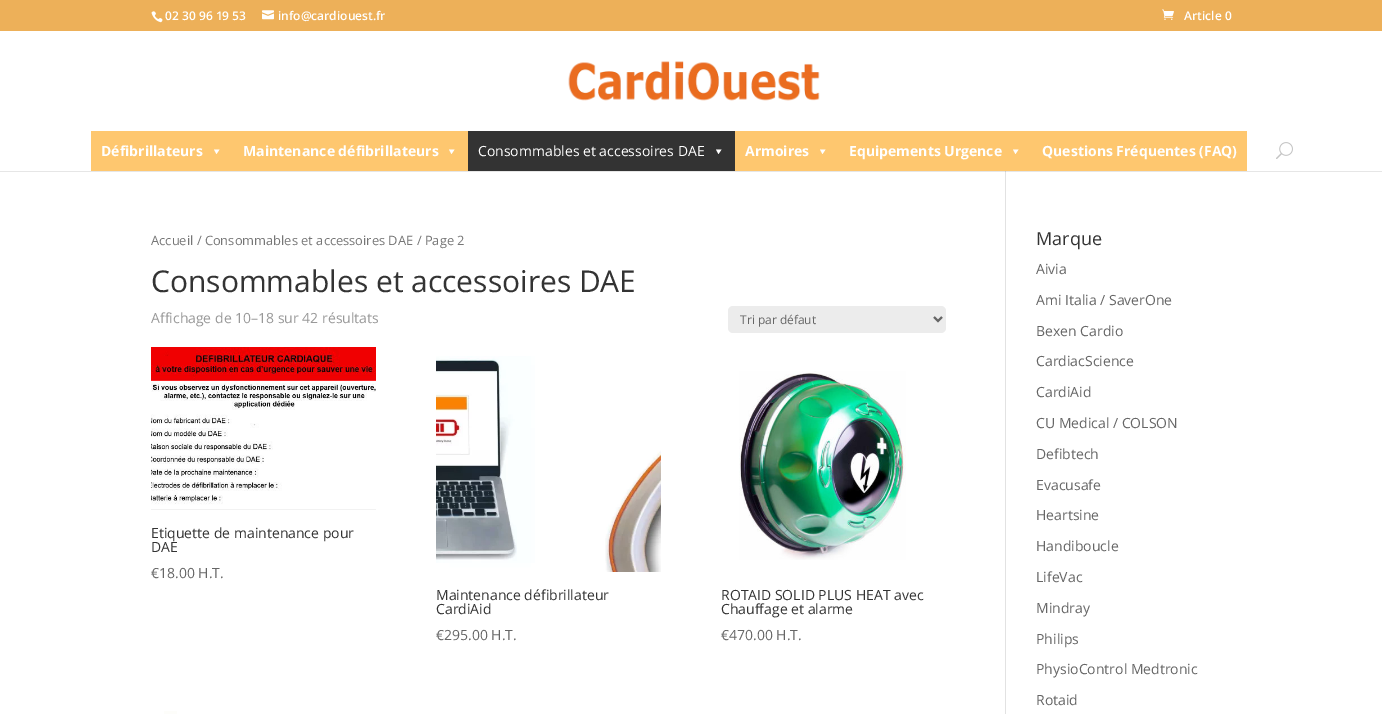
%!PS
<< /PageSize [1382 714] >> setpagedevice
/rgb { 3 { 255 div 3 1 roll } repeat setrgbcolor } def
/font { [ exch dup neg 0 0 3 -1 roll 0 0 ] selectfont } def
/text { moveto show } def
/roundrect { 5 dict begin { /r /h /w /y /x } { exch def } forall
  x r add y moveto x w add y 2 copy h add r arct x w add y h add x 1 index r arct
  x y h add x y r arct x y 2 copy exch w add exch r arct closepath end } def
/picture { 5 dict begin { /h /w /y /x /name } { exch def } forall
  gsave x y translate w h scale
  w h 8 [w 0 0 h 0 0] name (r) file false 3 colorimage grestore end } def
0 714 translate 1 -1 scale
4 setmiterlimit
255 255 255 rgb
0 0 1382 714 rectfill
237 176 89 rgb
0 0 1382 31 rectfill
(img_01.rgb) 151 11 12 12 picture
(img_02.rgb) 262 10 12 10 picture
(img_03.rgb) 1162 9 12 11 picture
(img_04.rgb) 568 61 252 40 picture
254 199 111 rgb
91 131 1156 40 rectfill
255 255 255 rgb
219.5 149.5 moveto -3 4.5 rlineto -2.5 -4.5 rlineto closepath fill
454.5 149.5 moveto -3 4.5 rlineto -2.5 -4.5 rlineto closepath fill
51 51 51 rgb
468 131 267 40 rectfill
255 255 255 rgb
721.5 149.5 moveto -3 4.5 rlineto -2.5 -4.5 rlineto closepath fill
825.5 149.5 moveto -3 4.5 rlineto -2.5 -4.5 rlineto closepath fill
1018.5 149.5 moveto -3 4.5 rlineto -2.5 -4.5 rlineto closepath fill
(img_05.rgb) 1276 142 17 17 picture
230 230 230 rgb
0 171 1382 1 rectfill
226 226 226 rgb
1005 171 1 543 rectfill
203 203 203 rgb
1005 171 1 1 rectfill
236 236 236 rgb
728 306 218 27 5 roundrect fill
102 102 102 rgb
2 setlinewidth
934 317 moveto 4 4 rlineto 4 -4 rlineto stroke
(img_06.rgb) 151 347 225 163 picture
(img_07.rgb) 436 356 225 216 picture
(img_08.rgb) 739 371 167 189 picture
253 253 250 rgb
164 711 13 3 rectfill
/OpenSans-SemiBold 12 font
255 255 255 rgb
(02 30 96 19 53) 165 20 text
(info@cardiouest.fr) 278 20 text
(Article 0) 1184 20 text
/OpenSans-Bold 14 font
(Défibrillateurs) 101 156 text
(Maintenance défibrillateurs) 243 156 text
/OpenSans-Regular 14 font
(Consommables et accessoires DAE) 478 156 text
/OpenSans-Bold 14 font
(Armoires) 745 156 text
(Equipements Urgence) 849 156 text
(Questions Fréquentes \(FAQ\)) 1042 156 text
/OpenSans-Regular 12.9 font
118 118 118 rgb
(Accueil / Consommables et accessoires DAE / Page 2) 151 245 text
/OpenSans-Regular 30 font
51 51 51 rgb
(Consommables et accessoires DAE) 151 292 text
/OpenSans-Regular 14 font
153 153 153 rgb
(Affichage de 10–18 sur 42 résultats) 151 323 text
/OpenSans-Regular 12 font
102 102 102 rgb
(Tri par défaut) 740 324 text
/OpenSans-Regular 14 font
51 51 51 rgb
(Etiquette de maintenance pour) 151 538 text
(DAE) 151 552 text
102 102 102 rgb
(€18.00 H.T.) 151 578 text
51 51 51 rgb
(Maintenance défibrillateur) 436 600 text
(CardiAid) 436 614 text
102 102 102 rgb
(€295.00 H.T.) 436 640 text
51 51 51 rgb
(ROTAID SOLID PLUS HEAT avec) 721 600 text
(Chauffage et alarme) 721 614 text
102 102 102 rgb
(€470.00 H.T.) 721 640 text
/OpenSans-Regular 18 font
51 51 51 rgb
(Marque) 1036 245 text
/OpenSans-Regular 14 font
102 102 102 rgb
(Aivia) 1036 274 text
(Ami Italia / SaverOne) 1036 305 text
(Bexen Cardio) 1036 336 text
(CardiacScience) 1036 366 text
(CardiAid) 1036 397 text
(CU Medical / COLSON) 1036 428 text
(Defibtech) 1036 459 text
(Evacusafe) 1036 490 text
(Heartsine) 1036 520 text
(Handiboucle) 1036 551 text
(LifeVac) 1036 582 text
(Mindray) 1036 613 text
(Philips) 1036 644 text
(PhysioControl Medtronic) 1036 674 text
(Rotaid) 1036 705 text
showpage
